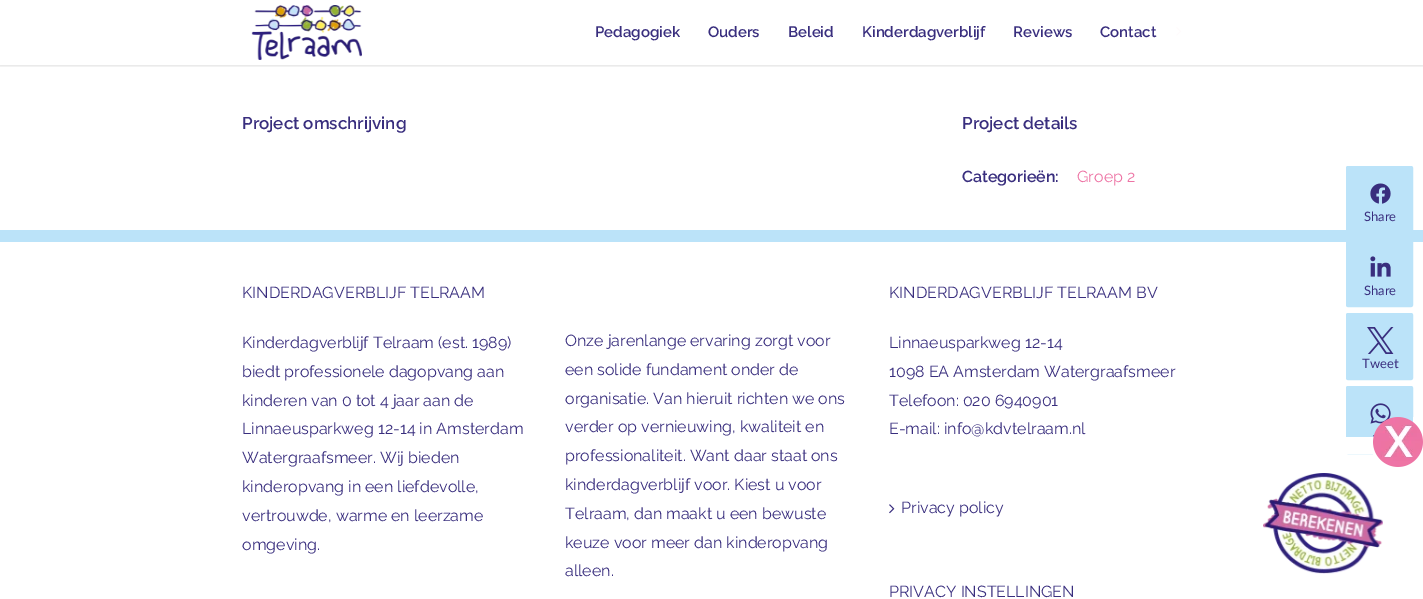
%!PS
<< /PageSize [1423 599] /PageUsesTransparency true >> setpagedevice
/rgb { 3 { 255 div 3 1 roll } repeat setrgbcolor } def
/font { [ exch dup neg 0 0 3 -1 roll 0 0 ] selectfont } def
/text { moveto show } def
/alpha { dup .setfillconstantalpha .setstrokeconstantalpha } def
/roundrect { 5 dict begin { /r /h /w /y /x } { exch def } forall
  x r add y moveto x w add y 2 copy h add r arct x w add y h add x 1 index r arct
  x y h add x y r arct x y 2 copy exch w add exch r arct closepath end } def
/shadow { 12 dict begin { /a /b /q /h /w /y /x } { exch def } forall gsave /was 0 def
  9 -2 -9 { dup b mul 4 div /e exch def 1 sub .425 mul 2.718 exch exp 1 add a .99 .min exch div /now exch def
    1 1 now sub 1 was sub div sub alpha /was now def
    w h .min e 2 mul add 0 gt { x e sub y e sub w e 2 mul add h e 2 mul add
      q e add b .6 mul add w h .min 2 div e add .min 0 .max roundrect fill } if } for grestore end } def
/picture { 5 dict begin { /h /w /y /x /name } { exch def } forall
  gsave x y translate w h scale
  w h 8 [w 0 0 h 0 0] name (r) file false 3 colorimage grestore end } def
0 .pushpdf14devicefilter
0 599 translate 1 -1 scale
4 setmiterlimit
255 255 255 rgb
0 0 1423 599 rectfill
(img_02.rgb) 1009 27 6 9 picture
(img_03.rgb) 1176 27 6 9 picture
gsave
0 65 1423 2 rectclip
0 0 0 rgb
0 1 1423 65 0 1.5 0.12 shadow
grestore
(img_01.rgb) 251 5 111 55 picture
187 227 249 rgb
0 230 1423 12 rectfill
(img_04.rgb) 889 504 6 10 picture
1346.5 166.5 66 66 1.5 roundrect gsave fill grestore
stroke
(img_05.rgb) 1370 183 21 21 picture
1346.5 239.5 66 67 1.5 roundrect gsave fill grestore
stroke
(img_06.rgb) 1370 256 21 21 picture
1346.5 313.5 66 66 1.5 roundrect gsave fill grestore
stroke
(img_07.rgb) 1367 327 27 27 picture
1346.5 386.5 66 67 1.5 roundrect gsave fill grestore
stroke
(img_08.rgb) 1370 403 21 21 picture
255 255 255 rgb
1346 437 57 17 rectfill
(img_09.rgb) 1373 417 50 50 picture
(img_10.rgb) 1263 473 120 101 picture
/Raleway-SemiBold 15 font
57 46 126 rgb
(Pedagogiek) 595 37 text
(Ouders) 708 37 text
(Beleid) 788 37 text
(Kinderdagverblijf) 862 37 text
(Reviews) 1013 37 text
(Contact) 1100 37 text
/Raleway-SemiBold 17 font
(Project omschrijving) 242 129 text
(Project details) 962 129 text
/Raleway-SemiBold 16 font
(Categorieën:) 962 182 text
/Raleway-Regular 16 font
237 115 164 rgb
(Groep 2) 1077 182 text
57 46 126 rgb
(KINDERDAGVERBLIJF TELRAAM) 242 298 text
(Kinderdagverblijf Telraam \(est. 1989\)) 242 348 text
(biedt professionele dagopvang aan) 242 377 text
(kinderen van 0 tot 4 jaar aan de) 242 406 text
(Linnaeusparkweg 12-14 in Amsterdam) 242 434 text
(Watergraafsmeer. Wij bieden) 242 463 text
(kinderopvang in een liefdevolle,) 242 492 text
(vertrouwde, warme en leerzame) 242 521 text
(omgeving.) 242 550 text
(Onze jarenlange ervaring zorgt voor) 565 346 text
(een solide fundament onder de) 565 375 text
(organisatie. Van hieruit richten we ons) 565 404 text
(verder op vernieuwing, kwaliteit en) 565 432 text
(professionaliteit. Want daar staat ons) 565 461 text
(kinderdagverblijf voor. Kiest u voor) 565 490 text
(Telraam, dan maakt u een bewuste) 565 519 text
(keuze voor meer dan kinderopvang) 565 548 text
(alleen.) 565 576 text
(KINDERDAGVERBLIJF TELRAAM BV) 889 298 text
(Linnaeusparkweg 12-14) 889 348 text
(1098 EA Amsterdam Watergraafsmeer) 889 377 text
(Telefoon: 020 6940901) 889 406 text
(E-mail: info@kdvtelraam.nl) 889 434 text
(Privacy policy) 901 513 text
(PRIVACY INSTELLINGEN) 889 597 text
/Lato-Regular 13 font
(Share) 1364 221 text
(Share) 1364 295 text
(Tweet) 1362 368 text
.poppdf14devicefilter showpage
